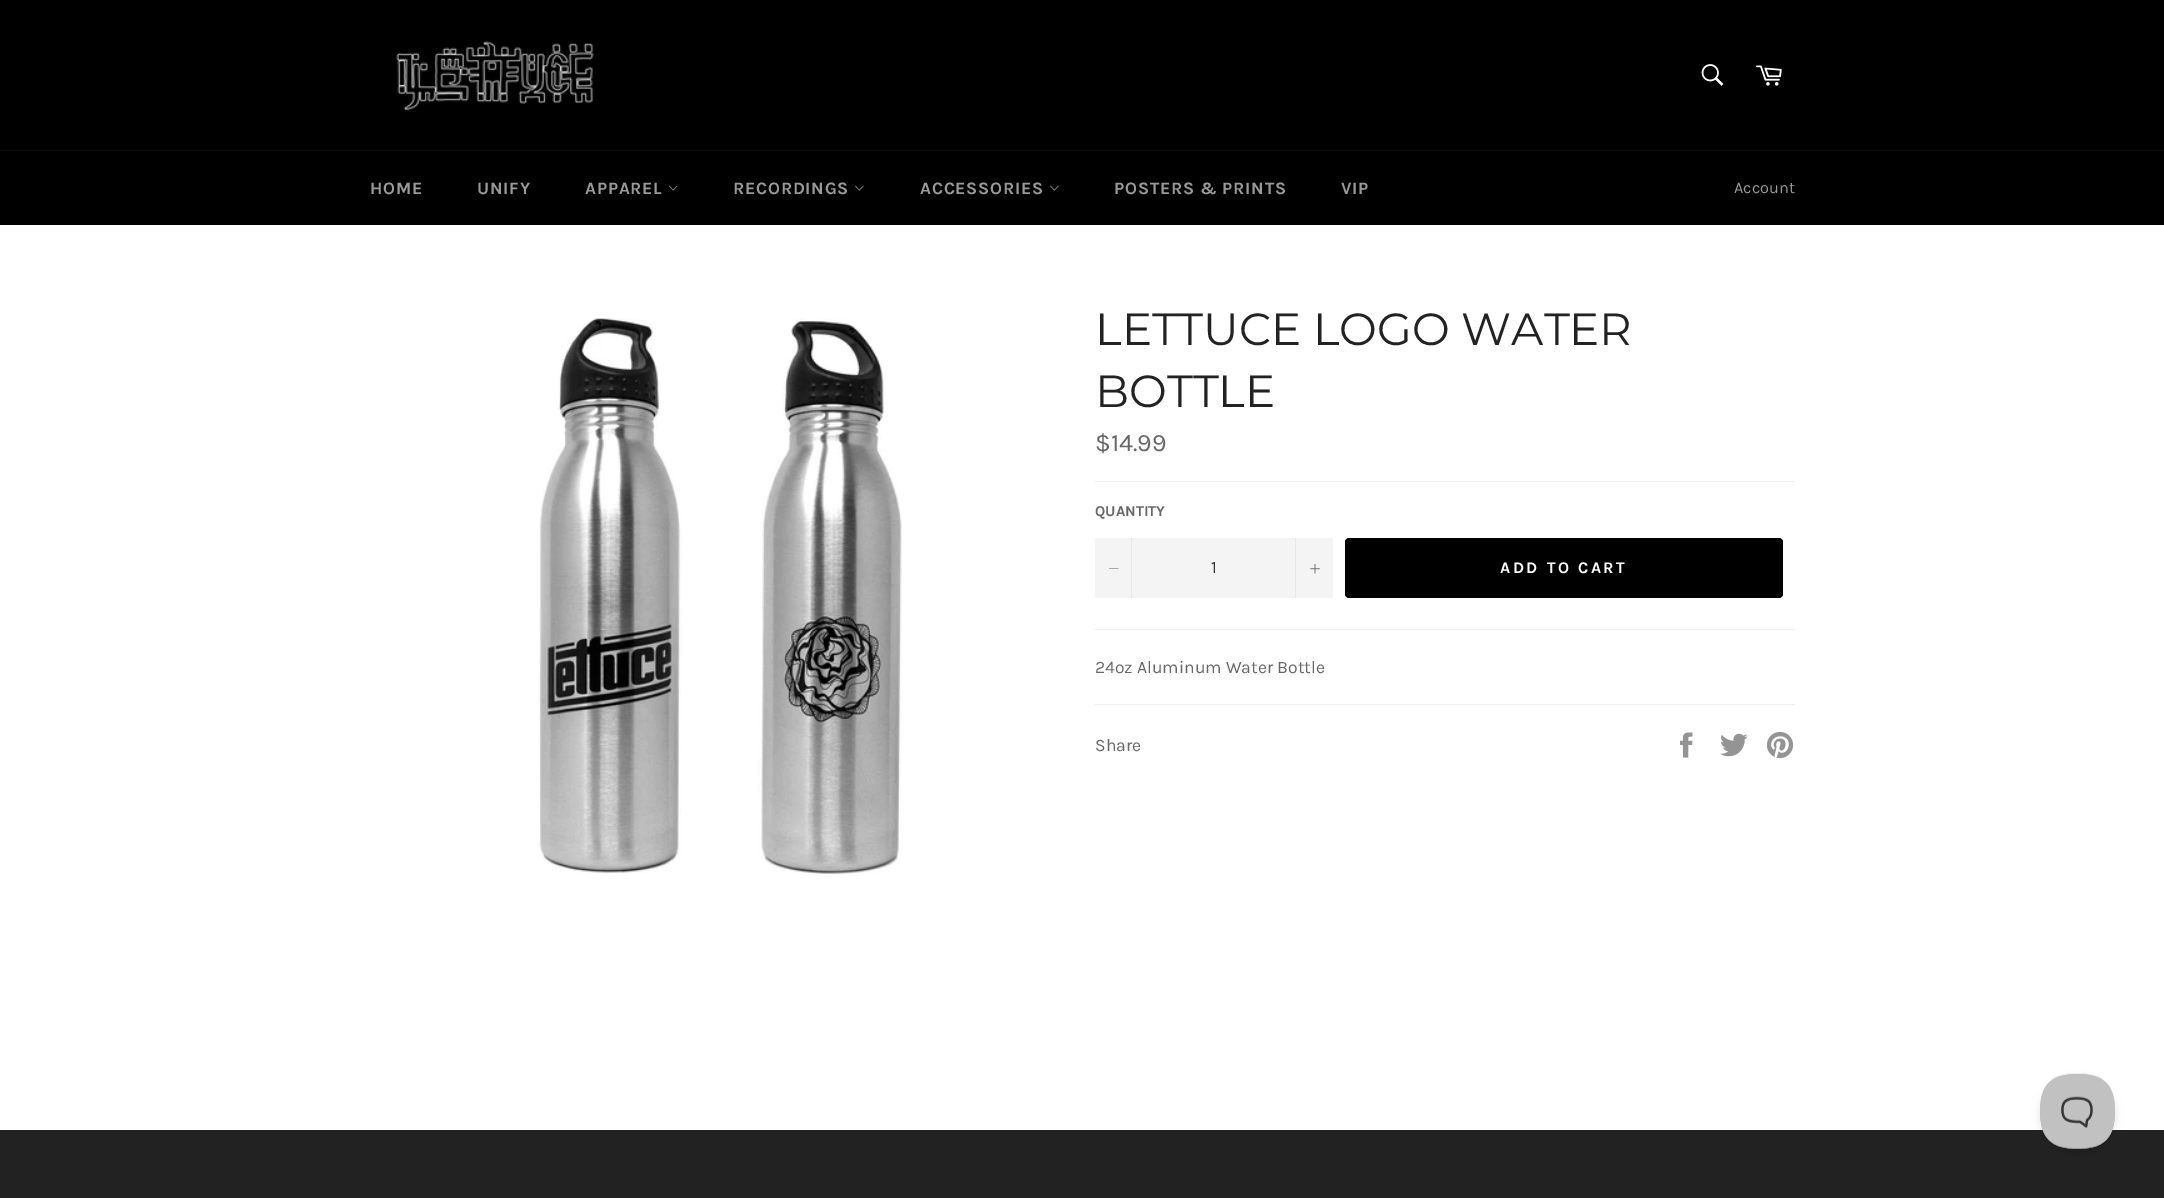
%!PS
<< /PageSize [2164 1198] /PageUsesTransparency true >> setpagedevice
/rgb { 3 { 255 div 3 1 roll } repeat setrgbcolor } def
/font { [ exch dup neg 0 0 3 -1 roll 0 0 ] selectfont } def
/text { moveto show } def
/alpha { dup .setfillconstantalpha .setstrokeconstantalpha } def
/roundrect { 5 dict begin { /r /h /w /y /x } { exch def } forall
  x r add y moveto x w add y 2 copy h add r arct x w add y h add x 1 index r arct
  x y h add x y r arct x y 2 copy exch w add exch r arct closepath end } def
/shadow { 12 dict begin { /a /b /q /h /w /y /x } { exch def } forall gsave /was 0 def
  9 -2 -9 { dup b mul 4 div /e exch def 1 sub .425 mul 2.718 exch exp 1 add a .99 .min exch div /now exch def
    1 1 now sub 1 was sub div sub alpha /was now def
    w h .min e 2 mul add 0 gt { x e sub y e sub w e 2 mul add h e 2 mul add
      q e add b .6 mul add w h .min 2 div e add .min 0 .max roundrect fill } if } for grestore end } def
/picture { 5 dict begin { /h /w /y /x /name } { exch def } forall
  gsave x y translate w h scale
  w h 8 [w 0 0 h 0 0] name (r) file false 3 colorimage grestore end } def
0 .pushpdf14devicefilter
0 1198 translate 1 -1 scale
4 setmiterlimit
0 0 0 rgb
0 0 2164 1198 rectfill
(img_01.rgb) 396 41 198 70 picture
(img_02.rgb) 1701 64 23 22 picture
(img_03.rgb) 1756 65 26 21 picture
13 13 13 rgb
0 150 2164 1 rectfill
(img_04.rgb) 668 185 10 6 picture
(img_05.rgb) 855 185 9 6 picture
(img_05.rgb) 1050 185 9 6 picture
255 255 255 rgb
0 225 2164 905 rectfill
(img_06.rgb) 539 318 363 556 picture
240 240 240 rgb
1095 481 700 1 rectfill
244 244 244 rgb
1095 538 238 60 rectfill
231 231 231 rgb
1131 538 1 60 rectfill
102 102 102 rgb
1118.5 568.5 moveto 0 0.5 rlineto -9.5 0 rlineto 0 -0.5 rlineto closepath eofill
231 231 231 rgb
1295 538 1 60 rectfill
(img_07.rgb) 1310 564 10 10 picture
0 0 0 rgb
1345 538 438 60 4 roundrect fill
240 240 240 rgb
1095 629 700 1 rectfill
1095 704 700 1 rectfill
(img_08.rgb) 1680 732 13 26 picture
(img_09.rgb) 1720 733 28 24 picture
(img_10.rgb) 1766 731 28 28 picture
34 34 34 rgb
0 1130 2164 68 rectfill
0 0 0 rgb
2040 1079 75 75 37.5 4.5 0.1 shadow
(img_11.rgb) 2040 1073 75 76 picture
/Karla-Bold 17.5 font
153 153 153 rgb
370 194 moveto 0.75 0 (HOME) ashow
477 194 moveto 0.75 0 (UNIFY) ashow
585 194 moveto 0.75 0 (APPAREL) ashow
733 194 moveto 0.75 0 (RECORDINGS) ashow
920 194 moveto 0.75 0 (ACCESSORIES) ashow
1114 194 moveto 0.75 0 (POSTERS & PRINTS) ashow
1341 194 moveto 0.75 0 (VIP) ashow
/Karla-Regular 16.25 font
(Account) 1734 193 text
/Montserrat-Regular 45 font
34 34 34 rgb
(LETTUCE LOGO WATER) 1095 345 text
(BOTTLE) 1095 407 text
/Karla-Regular 25 font
102 102 102 rgb
($14.99) 1095 451 text
/Karla-Bold 15 font
(QUANTITY) 1095 516 text
/Karla-Regular 17.5 font
51 51 51 rgb
(1) 1211 573 text
/Karla-Bold 16.25 font
255 255 255 rgb
1500 573 moveto 2.5 0 (ADD TO CART) ashow
/Karla-Regular 17.5 font
102 102 102 rgb
(24oz Aluminum Water Bottle) 1095 673 text
(Share) 1095 751 text
.poppdf14devicefilter showpage
